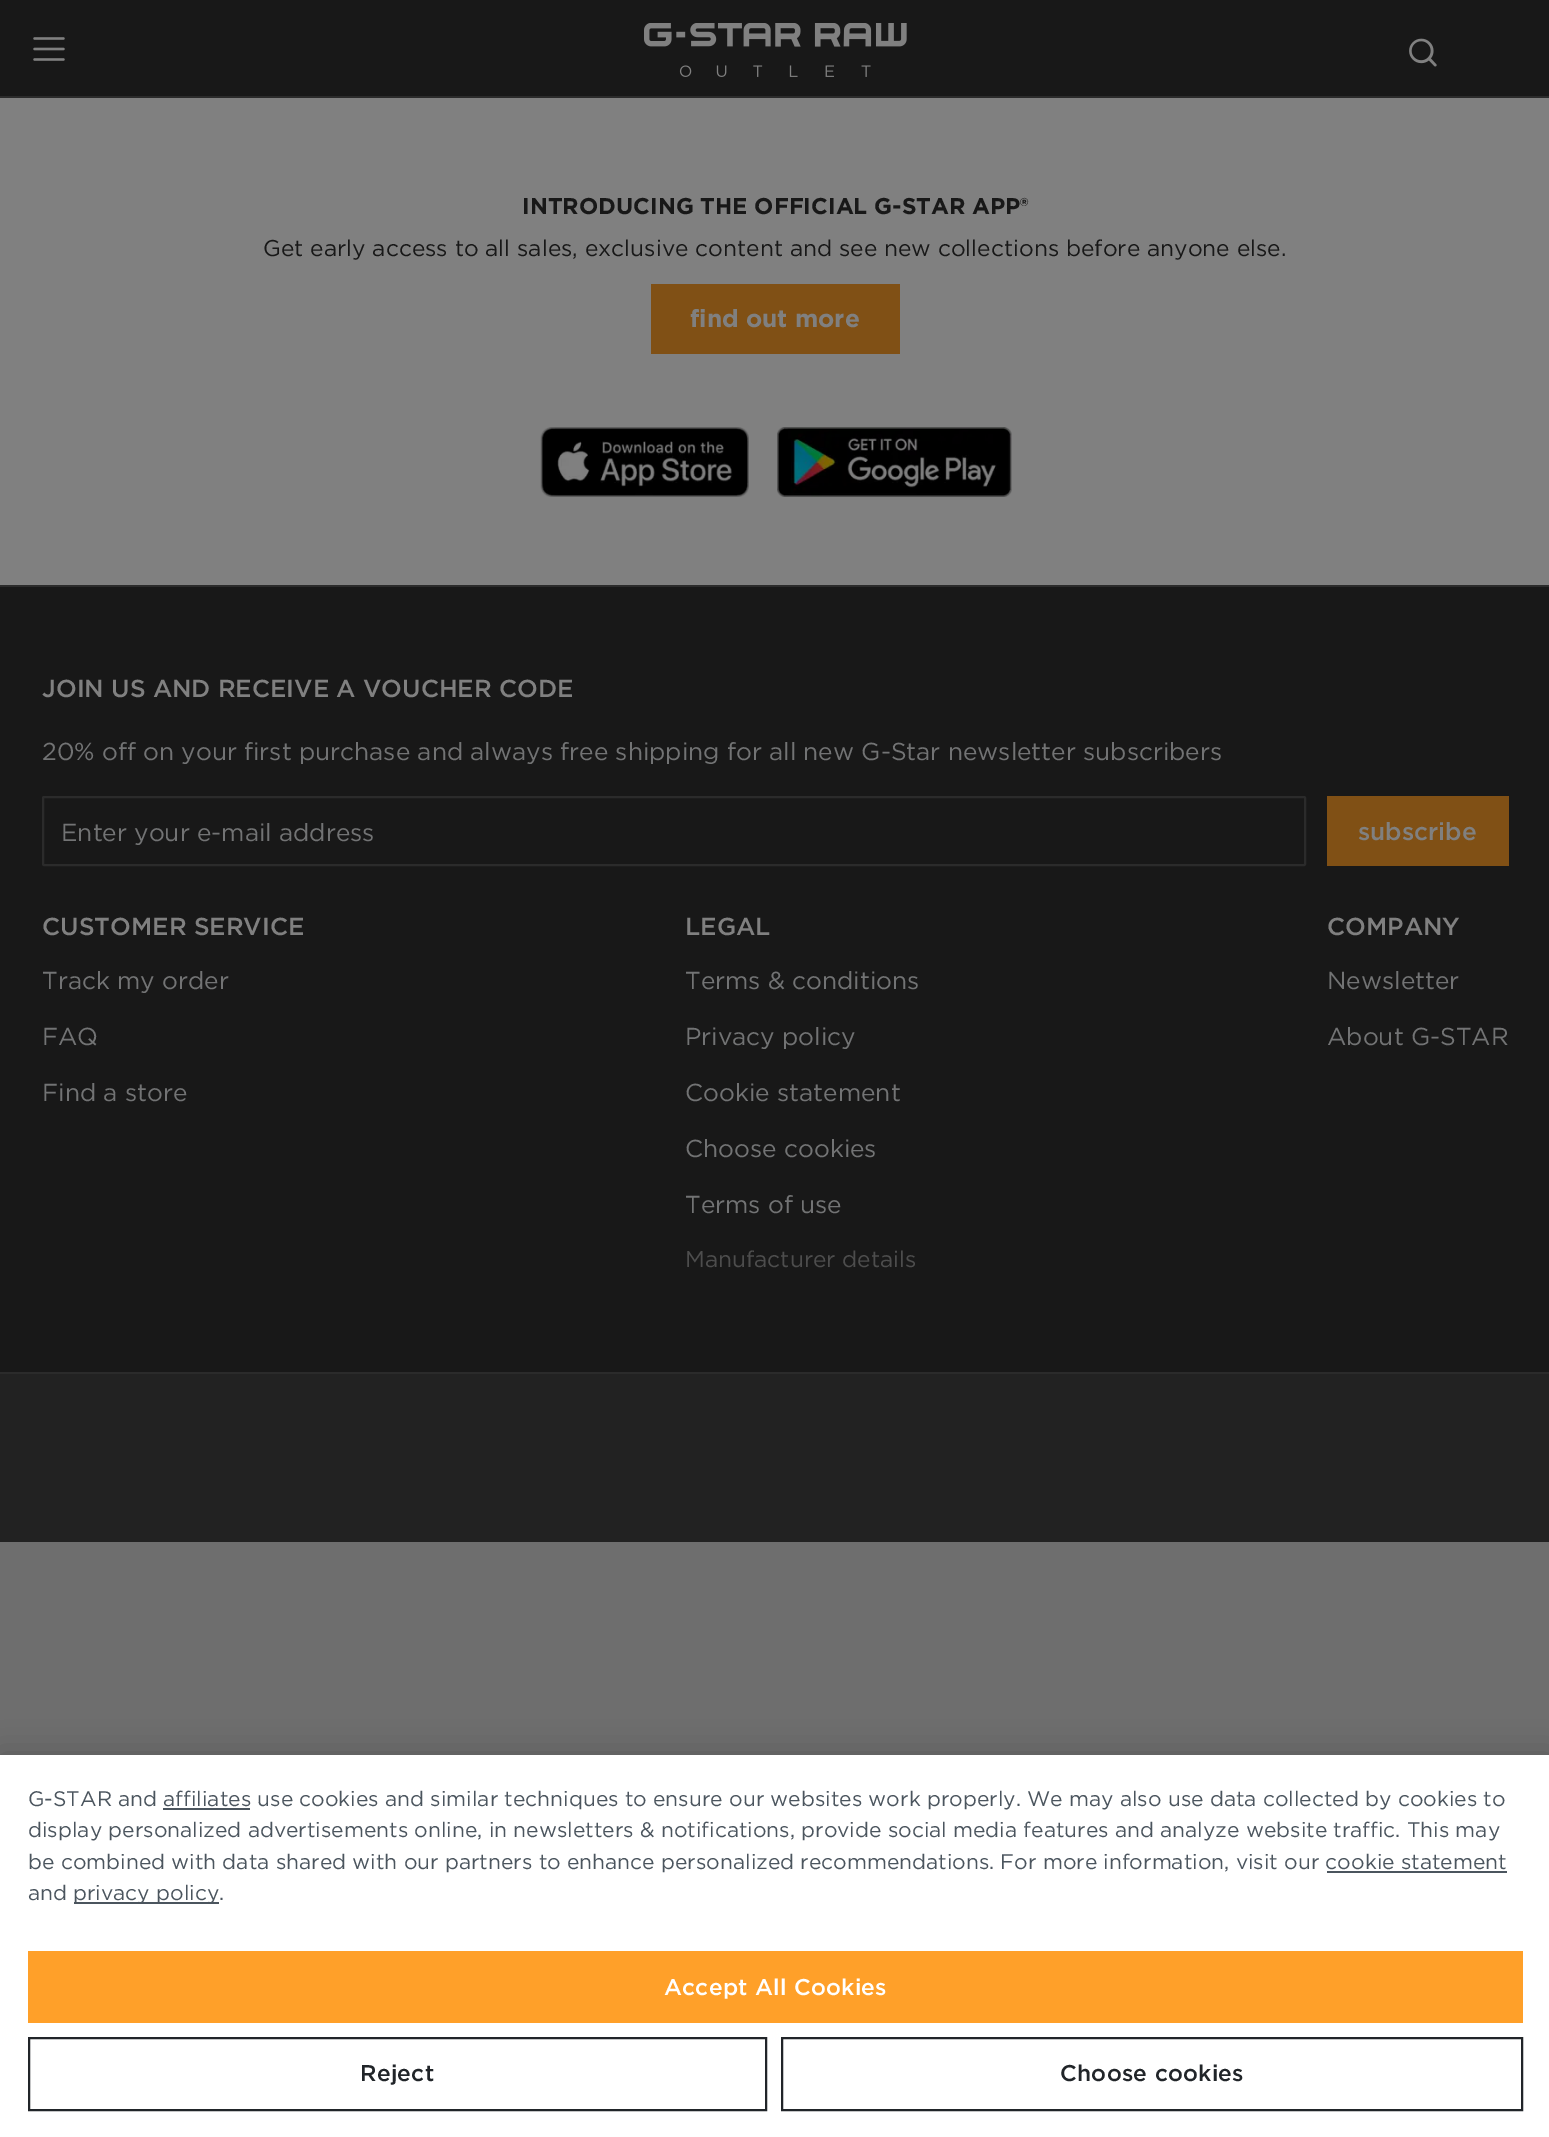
%!PS
<< /PageSize [1549 2137] /PageUsesTransparency true >> setpagedevice
/rgb { 3 { 255 div 3 1 roll } repeat setrgbcolor } def
/font { [ exch dup neg 0 0 3 -1 roll 0 0 ] selectfont } def
/text { moveto show } def
/alpha { dup .setfillconstantalpha .setstrokeconstantalpha } def
/roundrect { 5 dict begin { /r /h /w /y /x } { exch def } forall
  x r add y moveto x w add y 2 copy h add r arct x w add y h add x 1 index r arct
  x y h add x y r arct x y 2 copy exch w add exch r arct closepath end } def
/shadow { 12 dict begin { /a /b /q /h /w /y /x } { exch def } forall gsave /was 0 def
  9 -2 -9 { dup b mul 4 div /e exch def 1 sub .425 mul 2.718 exch exp 1 add a .99 .min exch div /now exch def
    1 1 now sub 1 was sub div sub alpha /was now def
    w h .min e 2 mul add 0 gt { x e sub y e sub w e 2 mul add h e 2 mul add
      q e add b .6 mul add w h .min 2 div e add .min 0 .max roundrect fill } if } for grestore end } def
/picture { 5 dict begin { /h /w /y /x /name } { exch def } forall
  gsave x y translate w h scale
  w h 8 [w 0 0 h 0 0] name (r) file false 3 colorimage grestore end } def
0 .pushpdf14devicefilter
0 2137 translate 1 -1 scale
4 setmiterlimit
110 110 110 rgb
0 0 1549 2137 rectfill
24 24 24 rgb
0 0 1549 96 rectfill
43 43 43 rgb
0 96 1549 2 rectfill
(img_01.rgb) 33 37 32 24 picture
(img_02.rgb) 644 23 263 54 picture
(img_03.rgb) 1409 38 28 29 picture
24 24 24 rgb
0 587 1549 785 rectfill
128 128 128 rgb
0 98 1549 487 rectfill
128 80 21 rgb
651 284 249 70 rectfill
(img_04.rgb) 540 427 209 70 picture
(img_05.rgb) 777 427 235 70 picture
43 43 43 rgb
0 585 1549 2 rectfill
2 setlinewidth
43 797 1262 68 1 roundrect stroke
128 80 21 rgb
1327 796 182 70 rectfill
34 34 34 rgb
0 1374 1549 168 rectfill
43 43 43 rgb
0 1372 1549 2 rectfill
0 0 0 rgb
0 1755 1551 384 0 16 0.2 shadow
255 255 255 rgb
0 1755 1549 382 rectfill
75 85 94 rgb
163 1808 87 2 rectfill
1327 1871 180 2 rectfill
74 1902 145 2 rectfill
255 160 41 rgb
28 1951 1495 72 rectfill
33 37 41 rgb
29 2038 737 72 rectstroke
782 2038 740 72 rectstroke
/Gotham-Bold 22.75 font
24 24 24 rgb
(INTRODUCING THE OFFICIAL G-STAR APP®) 522 214 text
/Gotham-Regular 22.75 font
(Get early access to all sales, exclusive content and see new collections before anyone else.) 263 256 text
/Gotham-Bold 24.5 font
128 128 128 rgb
(find out more) 690 327 text
/Gotham-Medium 24.5 font
(JOIN US AND RECEIVE A VOUCHER CODE) 42 697 text
/Gotham-Regular 24.5 font
114 115 116 rgb
(20% off on your first purchase and always free shipping for all new G-Star newsletter subscribers) 42 760 text
(Enter your e-mail address) 61 841 text
/Gotham-Medium 24.5 font
128 128 128 rgb
(subscribe) 1358 840 text
(CUSTOMER SERVICE) 42 935 text
/Gotham-Regular 24.5 font
114 115 116 rgb
(Track my order) 42 989 text
(FAQ) 42 1045 text
(Find a store) 42 1101 text
/Gotham-Medium 24.5 font
128 128 128 rgb
(LEGAL) 685 935 text
/Gotham-Regular 24.5 font
114 115 116 rgb
(Terms & conditions) 685 989 text
(Privacy policy) 685 1045 text
(Cookie statement) 685 1101 text
(Choose cookies) 685 1157 text
(Terms of use) 685 1213 text
/Gotham-Regular 22.75 font
77 77 77 rgb
(Manufacturer details) 685 1267 text
/Gotham-Medium 24.5 font
128 128 128 rgb
(COMPANY) 1327 935 text
/Gotham-Regular 24.5 font
114 115 116 rgb
(Newsletter) 1327 989 text
(About G-STAR) 1327 1045 text
/Gotham-Regular 21 font
75 85 94 rgb
(G-STAR and affiliates use cookies and similar techniques to ensure our websites work properly. We may also use data collected by cookies to) 28 1806 text
(display personalized advertisements online, in newsletters & notifications, provide social media features and analyze website traffic. This may) 28 1837 text
(be combined with data shared with our partners to enhance personalized recommendations. For more information, visit our cookie statement) 28 1869 text
(and) 28 1900 text
(privacy policy.) 73 1900 text
/Gotham-Medium 22.75 font
255 255 255 rgb
664 1995 moveto 0.25 0 (Accept All Cookies) ashow
33 37 41 rgb
360 2081 moveto 0.25 0 (Reject) ashow
1060 2081 moveto 0.25 0 (Choose cookies) ashow
.poppdf14devicefilter showpage
